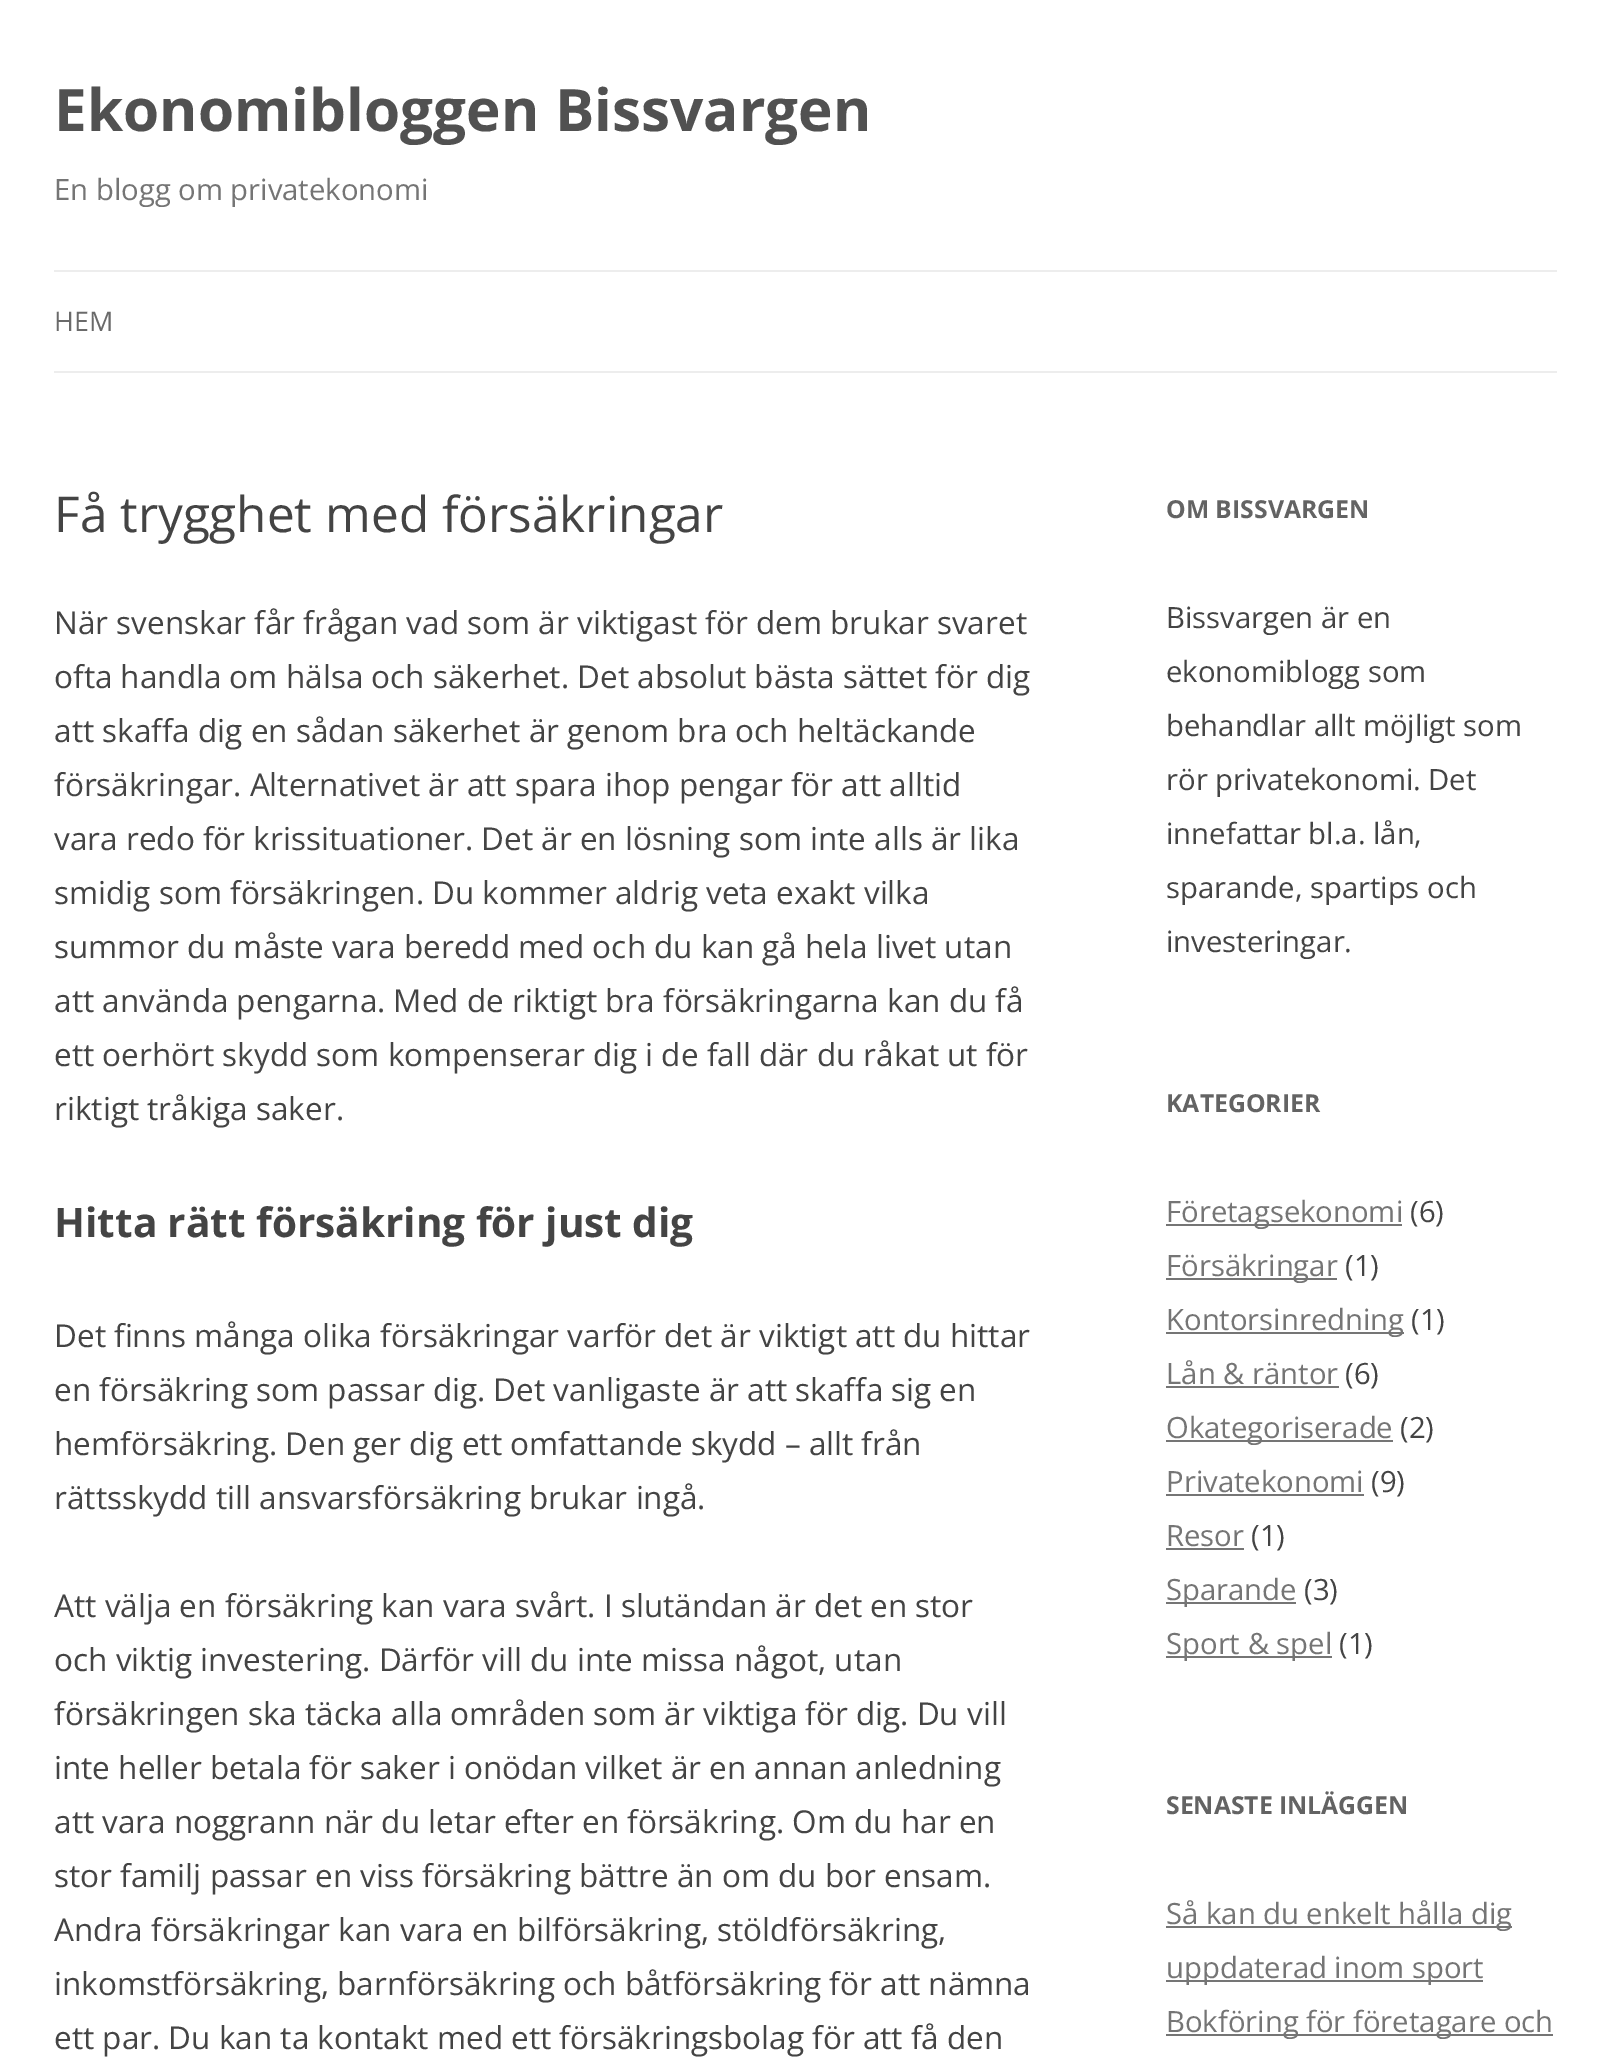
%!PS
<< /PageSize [1609 2063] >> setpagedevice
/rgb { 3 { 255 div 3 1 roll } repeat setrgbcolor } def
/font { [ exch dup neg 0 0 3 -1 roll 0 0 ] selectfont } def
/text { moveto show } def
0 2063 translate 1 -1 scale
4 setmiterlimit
255 255 255 rgb
0 0 1609 2063 rectfill
237 237 237 rgb
54 270 1503 2 rectfill
54 371 1503 2 rectfill
117 117 117 rgb
1166 1224 236 2 rectfill
1166 1278 171 2 rectfill
1166 1332 238 2 rectfill
1166 1386 173 2 rectfill
1166 1440 227 2 rectfill
1166 1494 198 2 rectfill
1166 1548 78 2 rectfill
1166 1602 130 2 rectfill
1166 1656 166 2 rectfill
1166 1926 346 2 rectfill
1166 1980 317 2 rectfill
1166 2034 387 2 rectfill
/OpenSans-Bold 58.5 font
81 81 81 rgb
(Ekonomibloggen Bissvargen) 54 131 text
/OpenSans-Regular 29.25 font
117 117 117 rgb
(En blogg om privatekonomi) 54 200 text
/OpenSans-Regular 27 font
106 106 106 rgb
(HEM) 54 331 text
/OpenSans-Regular 49.5 font
68 68 68 rgb
(Få trygghet med försäkringar) 54 532 text
/OpenSans-Regular 31.5 font
(När svenskar får frågan vad som är viktigast för dem brukar svaret) 54 634 text
(ofta handla om hälsa och säkerhet. Det absolut bästa sättet för dig) 54 688 text
(att skaffa dig en sådan säkerhet är genom bra och heltäckande) 54 742 text
(försäkringar. Alternativet är att spara ihop pengar för att alltid) 54 796 text
(vara redo för krissituationer. Det är en lösning som inte alls är lika) 54 850 text
(smidig som försäkringen. Du kommer aldrig veta exakt vilka) 54 904 text
(summor du måste vara beredd med och du kan gå hela livet utan) 54 958 text
(att använda pengarna. Med de riktigt bra försäkringarna kan du få) 54 1012 text
(ett oerhört skydd som kompenserar dig i de fall där du råkat ut för) 54 1066 text
(riktigt tråkiga saker.) 54 1120 text
/OpenSans-Bold 40.5 font
(Hitta rätt försäkring för just dig) 54 1237 text
/OpenSans-Regular 31.5 font
(Det finns många olika försäkringar varför det är viktigt att du hittar) 54 1347 text
(en försäkring som passar dig. Det vanligaste är att skaffa sig en) 54 1401 text
(hemförsäkring. Den ger dig ett omfattande skydd – allt från) 54 1455 text
(rättsskydd till ansvarsförsäkring brukar ingå.) 54 1509 text
(Att välja en försäkring kan vara svårt. I slutändan är det en stor) 54 1617 text
(och viktig investering. Därför vill du inte missa något, utan) 54 1671 text
(försäkringen ska täcka alla områden som är viktiga för dig. Du vill) 54 1725 text
(inte heller betala för saker i onödan vilket är en annan anledning) 54 1779 text
(att vara noggrann när du letar efter en försäkring. Om du har en) 54 1833 text
(stor familj passar en viss försäkring bättre än om du bor ensam.) 54 1887 text
(Andra försäkringar kan vara en bilförsäkring, stöldförsäkring,) 54 1941 text
(inkomstförsäkring, barnförsäkring och båtförsäkring för att nämna) 54 1995 text
(ett par. Du kan ta kontakt med ett försäkringsbolag för att få den) 54 2049 text
/OpenSans-Bold 24.75 font
99 99 99 rgb
(OM BISSVARGEN) 1166 518 text
/OpenSans-Regular 29.25 font
68 68 68 rgb
(Bissvargen är en) 1166 628 text
(ekonomiblogg som) 1166 682 text
(behandlar allt möjligt som) 1166 736 text
(rör privatekonomi. Det) 1166 790 text
(innefattar bl.a. lån,) 1166 844 text
(sparande, spartips och) 1166 898 text
(investeringar.) 1166 952 text
/OpenSans-Bold 24.75 font
99 99 99 rgb
(KATEGORIER) 1166 1112 text
/OpenSans-Regular 29.25 font
117 117 117 rgb
(Företagsekonomi) 1166 1222 text
68 68 68 rgb
(\(6\)) 1410 1222 text
117 117 117 rgb
(Försäkringar) 1166 1276 text
68 68 68 rgb
(\(1\)) 1345 1276 text
117 117 117 rgb
(Kontorsinredning) 1166 1330 text
68 68 68 rgb
(\(1\)) 1411 1330 text
117 117 117 rgb
(Lån & räntor) 1166 1384 text
68 68 68 rgb
(\(6\)) 1345 1384 text
117 117 117 rgb
(Okategoriserade) 1166 1438 text
68 68 68 rgb
(\(2\)) 1400 1438 text
117 117 117 rgb
(Privatekonomi) 1166 1492 text
68 68 68 rgb
(\(9\)) 1371 1492 text
117 117 117 rgb
(Resor) 1166 1546 text
68 68 68 rgb
(\(1\)) 1251 1546 text
117 117 117 rgb
(Sparande) 1166 1600 text
68 68 68 rgb
(\(3\)) 1304 1600 text
117 117 117 rgb
(Sport & spel) 1166 1654 text
68 68 68 rgb
(\(1\)) 1339 1654 text
/OpenSans-Bold 24.75 font
99 99 99 rgb
(SENASTE INLÄGGEN) 1166 1814 text
/OpenSans-Regular 29.25 font
117 117 117 rgb
(Så kan du enkelt hålla dig) 1166 1924 text
(uppdaterad inom sport) 1166 1978 text
(Bokföring för företagare och) 1166 2032 text
showpage
